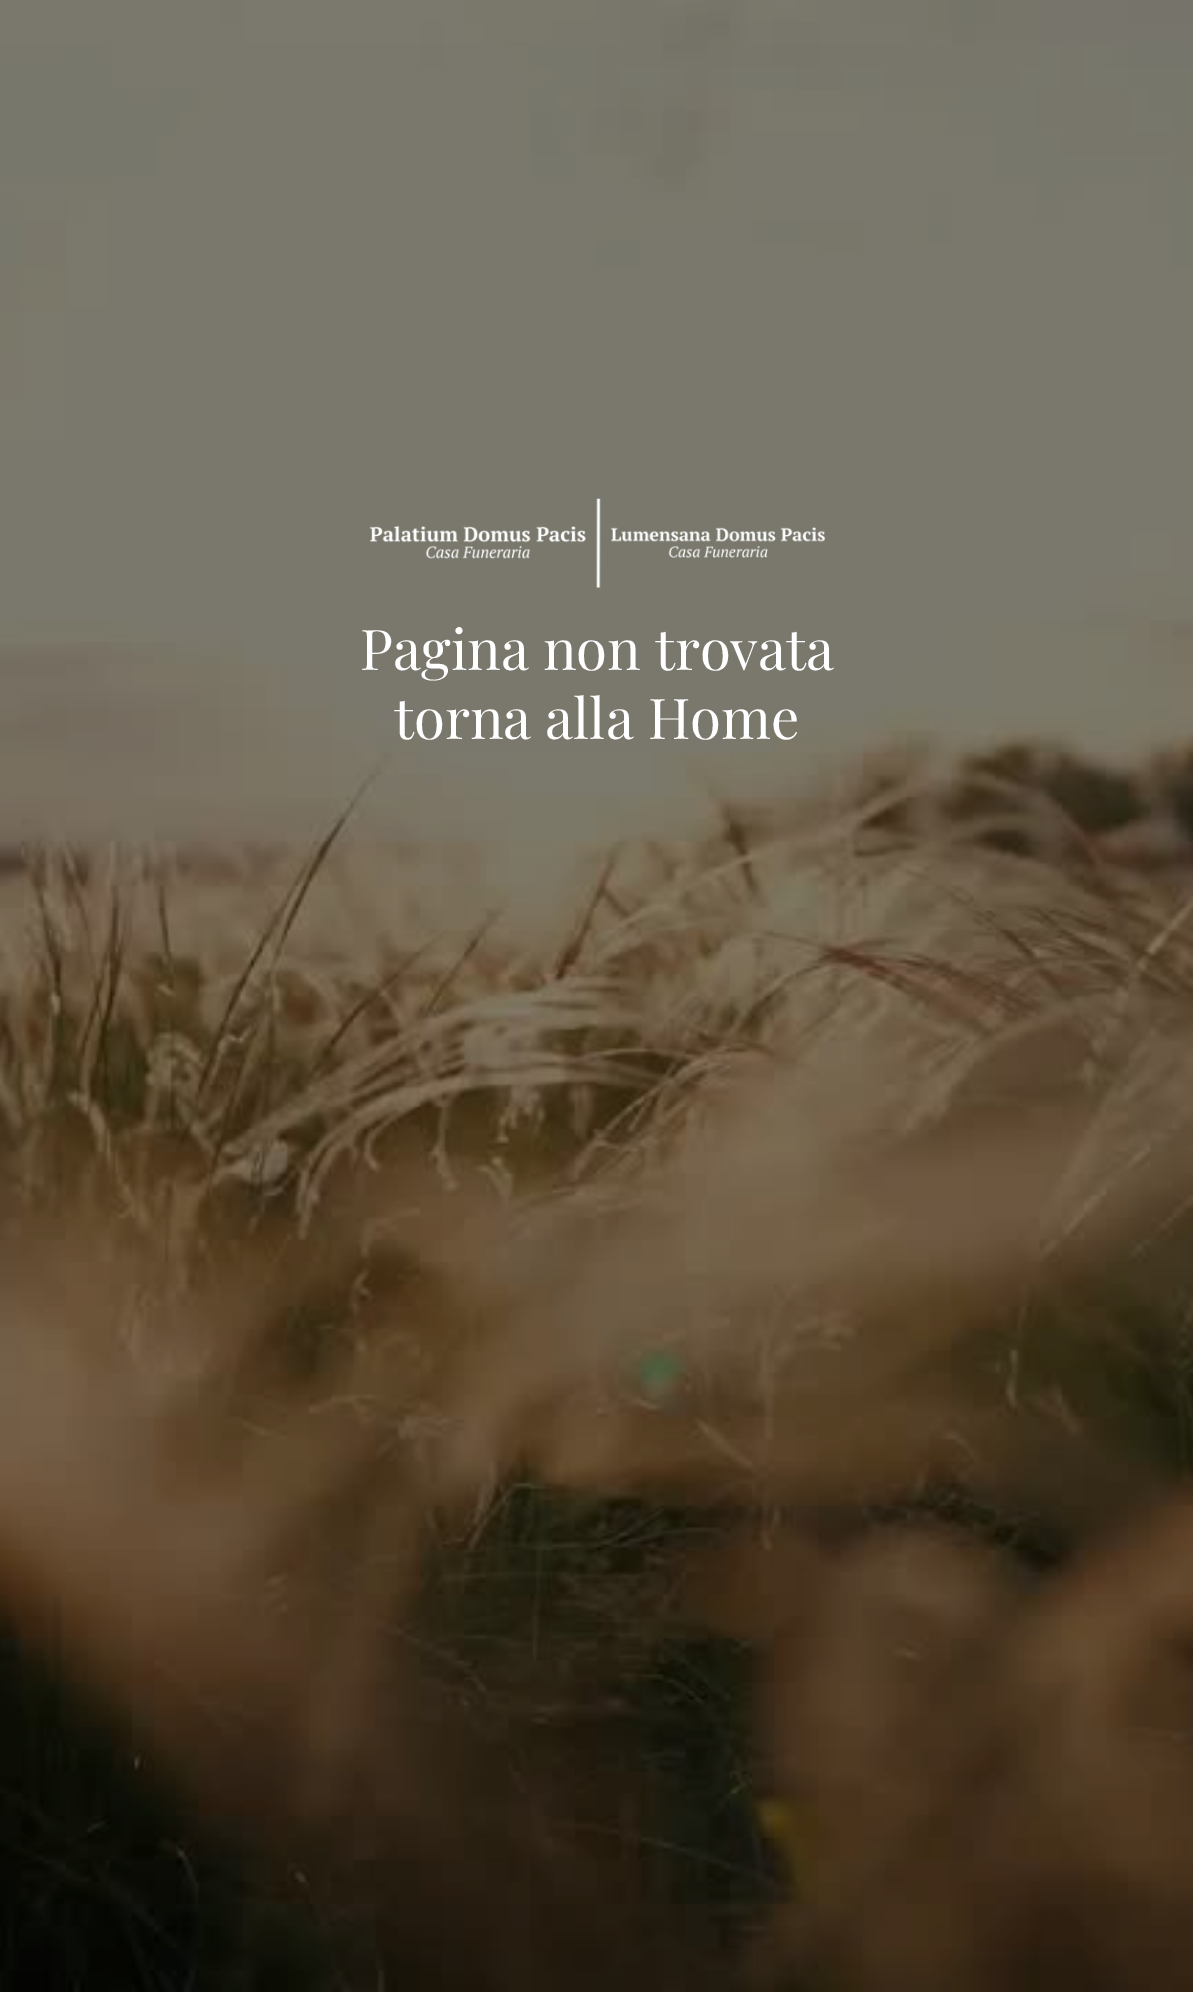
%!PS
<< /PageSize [1193 1992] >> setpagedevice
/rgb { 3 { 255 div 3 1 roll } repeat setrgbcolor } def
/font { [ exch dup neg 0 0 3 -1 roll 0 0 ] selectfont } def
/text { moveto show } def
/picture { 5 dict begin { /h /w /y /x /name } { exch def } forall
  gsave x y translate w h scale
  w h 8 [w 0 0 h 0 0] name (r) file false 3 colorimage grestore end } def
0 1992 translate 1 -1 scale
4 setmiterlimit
255 255 255 rgb
0 0 1193 1992 rectfill
(img_01.rgb) 0 0 1193 1992 picture
(img_02.rgb) 370 498 455 90 picture
/PlayfairDisplay-Regular 56.25 font
(Pagina non trovata) 360 670 text
(torna alla Home) 394 739 text
showpage
